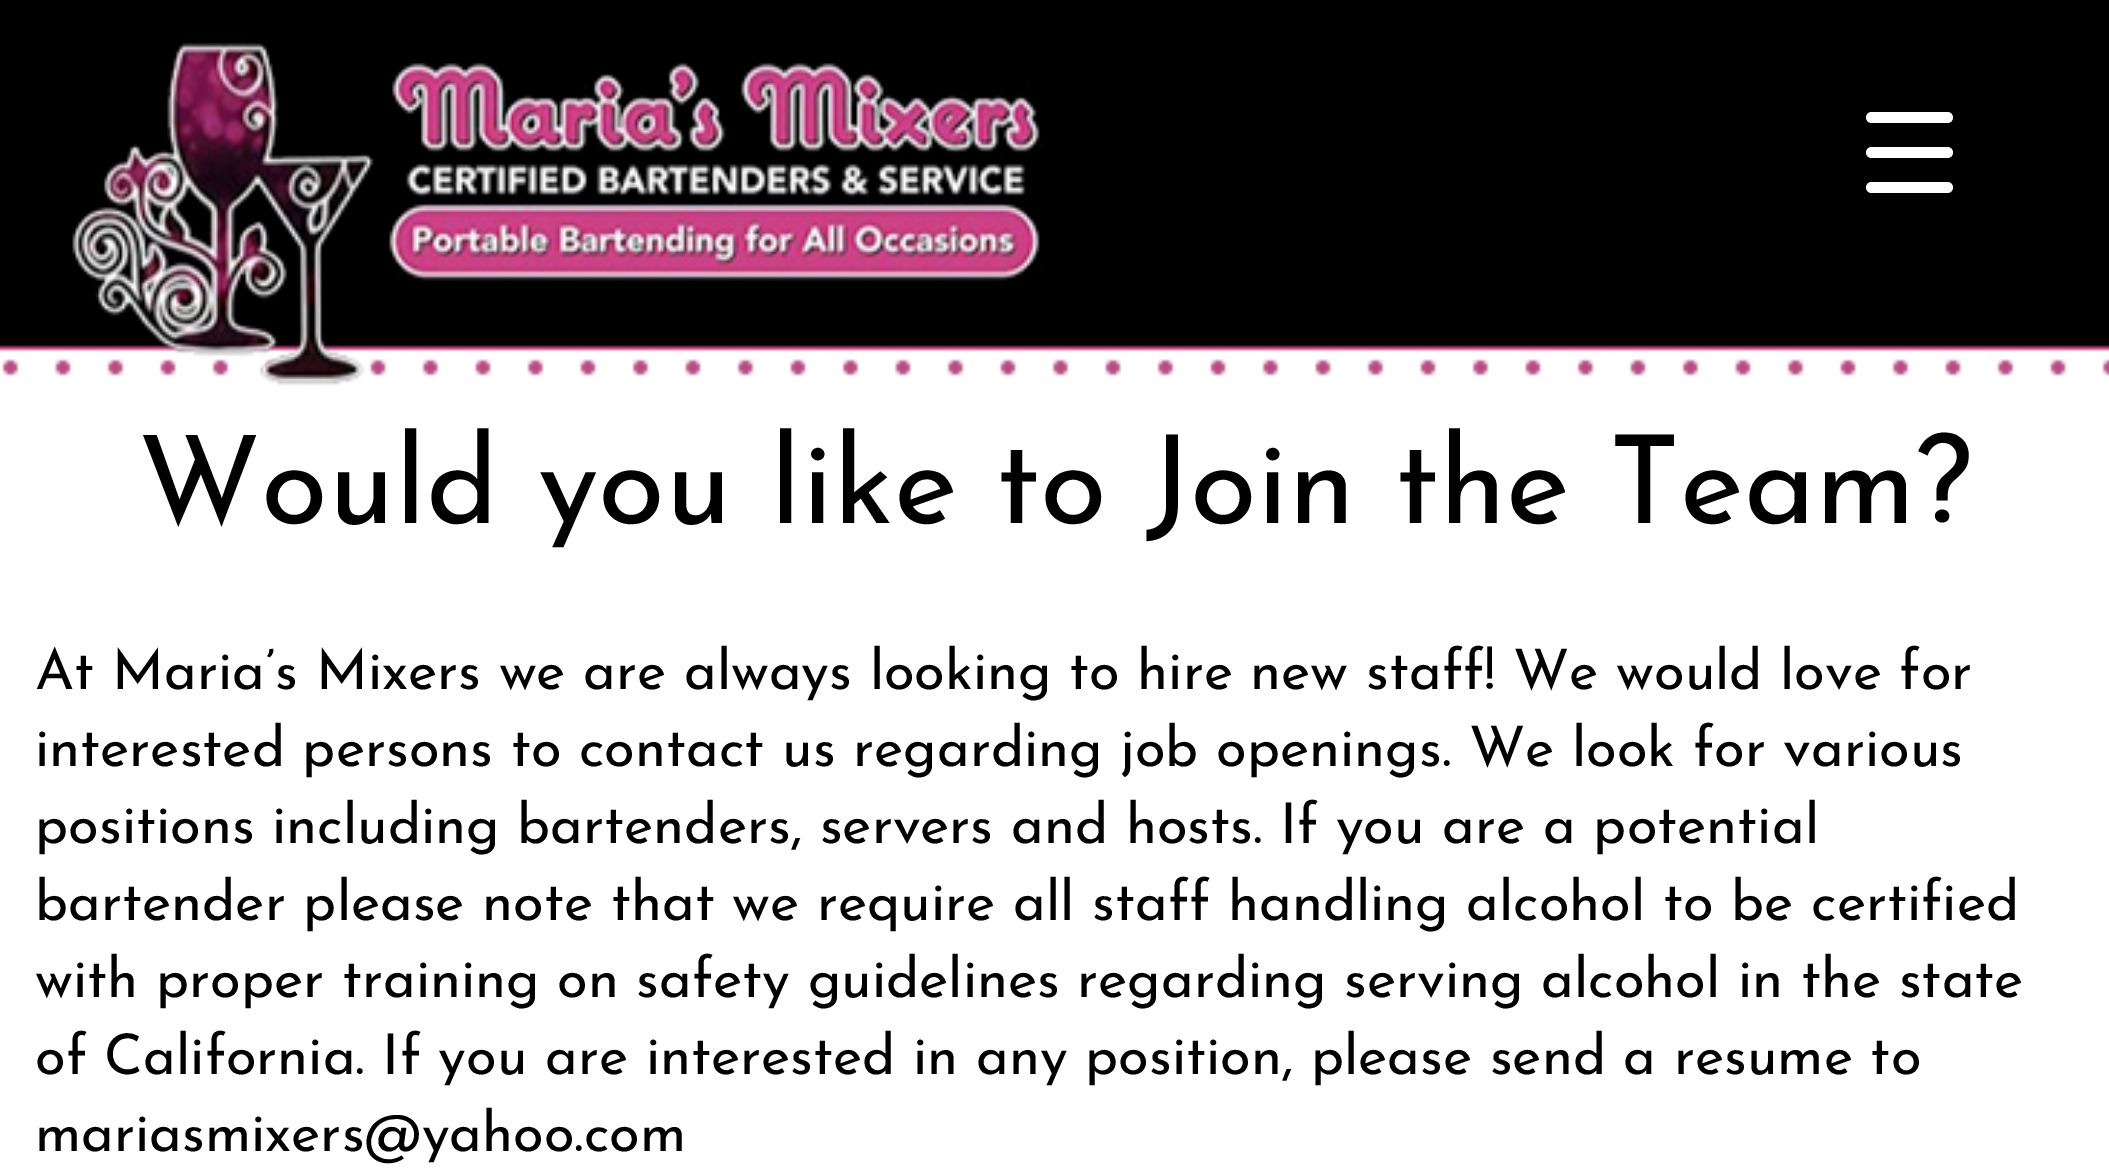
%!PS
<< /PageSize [2109 1176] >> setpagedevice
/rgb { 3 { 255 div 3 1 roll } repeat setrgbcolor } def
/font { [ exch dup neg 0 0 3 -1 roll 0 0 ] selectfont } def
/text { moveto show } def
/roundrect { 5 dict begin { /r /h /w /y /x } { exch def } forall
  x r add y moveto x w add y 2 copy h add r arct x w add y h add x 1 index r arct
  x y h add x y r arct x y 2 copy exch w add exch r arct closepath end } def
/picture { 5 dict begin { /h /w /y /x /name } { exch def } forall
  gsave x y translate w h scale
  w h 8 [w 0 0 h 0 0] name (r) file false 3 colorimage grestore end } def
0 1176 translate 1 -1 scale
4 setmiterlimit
255 255 255 rgb
0 0 2109 1176 rectfill
(img_01.rgb) 0 0 2109 376 picture
(img_02.rgb) 72 43 972 344 picture
1866 147 87 11 5.5 roundrect fill
1866 112 87 11 5.5 roundrect fill
1866 182 87 11 5.5 roundrect fill
/JosefinSans-Regular 122.5 font
0 0 0 rgb
(Would you like to Join the Team?) 138 523 text
/JosefinSans-Regular 56 font
(At Maria’s Mixers we are always looking to hire new staff! We would love for) 35 689 text
(interested persons to contact us regarding job openings. We look for various) 35 766 text
(positions including bartenders, servers and hosts. If you are a potential) 35 843 text
(bartender please note that we require all staff handling alcohol to be certified) 35 920 text
(with proper training on safety guidelines regarding serving alcohol in the state) 35 997 text
(of California. If you are interested in any position, please send a resume to) 35 1074 text
(mariasmixers@yahoo.com) 35 1151 text
showpage
